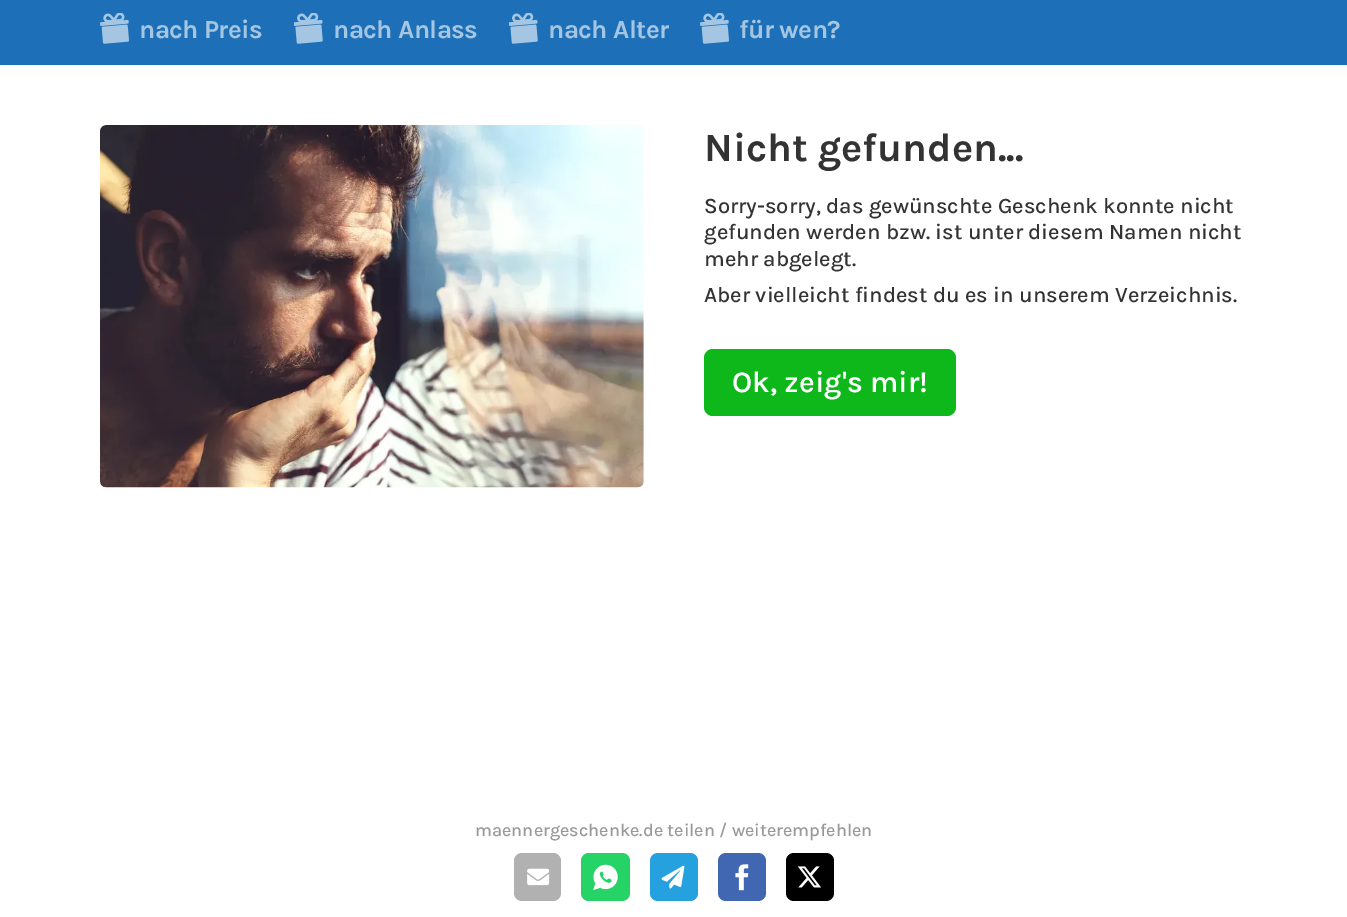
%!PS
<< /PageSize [1347 917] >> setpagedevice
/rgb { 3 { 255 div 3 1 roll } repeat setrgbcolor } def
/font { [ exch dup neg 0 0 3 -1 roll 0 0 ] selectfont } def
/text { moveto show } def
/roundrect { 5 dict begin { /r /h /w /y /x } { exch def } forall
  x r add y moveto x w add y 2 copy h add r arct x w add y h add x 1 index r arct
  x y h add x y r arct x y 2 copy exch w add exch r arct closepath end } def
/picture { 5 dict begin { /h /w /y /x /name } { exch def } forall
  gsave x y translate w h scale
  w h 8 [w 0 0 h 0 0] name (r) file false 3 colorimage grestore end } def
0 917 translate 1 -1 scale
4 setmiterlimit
255 255 255 rgb
0 0 1347 917 rectfill
29 112 183 rgb
0 0 1347 65 rectfill
(img_01.rgb) 100 13 29 31 picture
(img_02.rgb) 294 13 29 31 picture
(img_02.rgb) 509 13 29 31 picture
(img_01.rgb) 700 13 29 31 picture
(img_03.rgb) 100 125 544 363 picture
14 184 26 rgb
704 349 252 67 9 roundrect fill
177 177 177 rgb
514 853 47 48 8 roundrect fill
(img_04.rgb) 527 868 23 18 picture
37 211 103 rgb
581 853 49 48 8 roundrect fill
(img_05.rgb) 593 864 25 26 picture
36 161 222 rgb
650 853 48 48 8 roundrect fill
(img_06.rgb) 661 865 24 24 picture
66 103 178 rgb
718 853 48 48 8 roundrect fill
(img_07.rgb) 735 864 14 27 picture
0 0 0 rgb
786 853 48 48 8 roundrect fill
(img_08.rgb) 797 866 24 22 picture
/Karla-Bold 26 font
165 198 226 rgb
139 38 moveto -0.6 0 (nach Preis) ashow
333 38 moveto -0.6 0 (nach Anlass) ashow
548 38 moveto -0.6 0 (nach Alter) ashow
739 38 moveto -0.6 0 (für wen?) ashow
/Karla-Bold 40 font
51 51 51 rgb
(Nicht gefunden...) 704 161 text
/Karla-Medium 22 font
(Sorry-sorry, das gewünschte Geschenk konnte nicht) 704 213 text
(gefunden werden bzw. ist unter diesem Namen nicht) 704 239 text
(mehr abgelegt.) 704 266 text
(Aber vielleicht findest du es in unserem Verzeichnis.) 704 302 text
/Karla-SemiBold 30 font
255 255 255 rgb
(Ok, zeig's mir!) 732 392 text
/Karla-Medium 18 font
153 153 153 rgb
(maennergeschenke.de teilen / weiterempfehlen) 475 836 text
showpage
